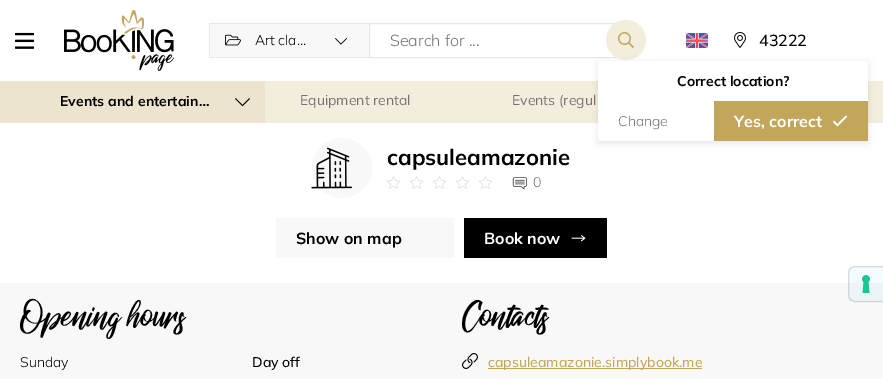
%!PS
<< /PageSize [883 379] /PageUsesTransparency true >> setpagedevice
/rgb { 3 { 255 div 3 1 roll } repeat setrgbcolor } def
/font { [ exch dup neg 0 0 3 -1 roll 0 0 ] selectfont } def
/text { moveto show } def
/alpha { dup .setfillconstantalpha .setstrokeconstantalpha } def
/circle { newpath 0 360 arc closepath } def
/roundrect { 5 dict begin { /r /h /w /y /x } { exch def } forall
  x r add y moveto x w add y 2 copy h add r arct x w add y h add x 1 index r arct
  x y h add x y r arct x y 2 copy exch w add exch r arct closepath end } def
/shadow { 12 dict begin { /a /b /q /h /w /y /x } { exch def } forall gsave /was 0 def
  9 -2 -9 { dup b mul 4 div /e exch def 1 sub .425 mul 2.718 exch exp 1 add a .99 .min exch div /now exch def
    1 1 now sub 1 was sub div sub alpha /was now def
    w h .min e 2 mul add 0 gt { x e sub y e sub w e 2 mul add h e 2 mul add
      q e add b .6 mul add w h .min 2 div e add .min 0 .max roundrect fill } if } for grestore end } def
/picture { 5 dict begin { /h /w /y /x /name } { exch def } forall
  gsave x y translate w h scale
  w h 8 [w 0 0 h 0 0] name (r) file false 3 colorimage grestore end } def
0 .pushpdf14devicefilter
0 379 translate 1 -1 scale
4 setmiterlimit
255 255 255 rgb
0 0 883 379 rectfill
(img_01.rgb) 15 32 19 17 picture
(img_02.rgb) 64 10 110 61 picture
248 248 248 rgb
210 24 159 33 rectfill
232 232 232 rgb
209 23 160 1 rectfill
209 57 160 1 rectfill
209 23 1 35 rectfill
(img_03.rgb) 225 34 16 12 picture
(img_04.rgb) 335 38 12 7 picture
369.5 23.5 256 34 rectstroke
243 237 222 rgb
626 40 20 circle fill
(img_05.rgb) 618 32 16 16 picture
(img_06.rgb) 686 33 22 15 picture
(img_07.rgb) 734 32 12 16 picture
265 81 618 42 rectfill
0 0 0 rgb
598 63 270 80 0 3.5 0.1 shadow
255 255 255 rgb
598 61 270 80 rectfill
194 166 92 rgb
714 101 154 40 rectfill
(img_08.rgb) 832 115 16 12 picture
237 228 207 rgb
0 81 265 42 rectfill
(img_09.rgb) 235 98 15 9 picture
248 248 248 rgb
342 168 30 circle fill
(img_10.rgb) 311 147 41 42 picture
(img_11.rgb) 387 176 13 13 picture
(img_11.rgb) 410 176 13 13 picture
(img_11.rgb) 433 176 13 13 picture
(img_11.rgb) 456 176 13 13 picture
(img_11.rgb) 479 176 13 13 picture
(img_12.rgb) 512 177 15 13 picture
276 218 178 40 rectfill
0 0 0 rgb
464 218 143 40 rectfill
(img_13.rgb) 571 235 15 7 picture
248 248 248 rgb
0 283 883 96 rectfill
(img_14.rgb) 462 353 16 16 picture
194 166 92 rgb
488 368 214 1 rectfill
0.15 alpha
0 0 0 rgb
855 266.5 moveto 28.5 0 rlineto 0 35 rlineto -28.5 0 rlineto -3.5 0 -6.5 -3 -6.5 -6.5 rcurveto 0 -22 rlineto 0 -3.5 3 -6.5 6.5 -6.5 rcurveto closepath stroke
0.05 alpha
6 173 239 rgb
849 267 34 34 rectfill
1 alpha
(img_15.rgb) 862 275 8 18 picture
/Mulish-Light 14 font
0 0 0 rgb
(Art cla…) 255 45 text
/Mulish-Light 16 font
115 115 115 rgb
(Search for ...) 390 46 text
/Mulish-Medium 16 font
0 0 0 rgb
(43222) 759 46 text
/Mulish-Bold 14 font
(Correct location?) 677 86 text
/Mulish-Light 14 font
115 115 115 rgb
(Change) 618 126 text
/Mulish-Bold 16 font
255 255 255 rgb
(Yes, correct) 734 127 text
/Mulish-Bold 14 font
0 0 0 rgb
(Events and entertain…) 60 106 text
/Mulish-Regular 14 font
115 115 115 rgb
(Equipment rental) 300 105 text
(Events \(regul) 512 105 text
/Mulish-Bold 22 font
0 0 0 rgb
(capsuleamazonie) 387 165 text
/Mulish-Light 14 font
115 115 115 rgb
(0) 533 187 text
/Mulish-Bold 16 font
0 0 0 rgb
(Show on map) 296 244 text
255 255 255 rgb
(Book now) 484 244 text
/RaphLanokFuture-Regular 30 font
0 0 0 rgb
(Opening hours) 20 326 text
/Mulish-Light 14 font
(Sunday) 20 367 text
/Mulish-Medium 14 font
(Day off) 252 367 text
/RaphLanokFuture-Regular 30 font
(Contacts) 462 326 text
/Mulish-Medium 14 font
194 166 92 rgb
(capsuleamazonie.simplybook.me) 488 367 text
.poppdf14devicefilter showpage
